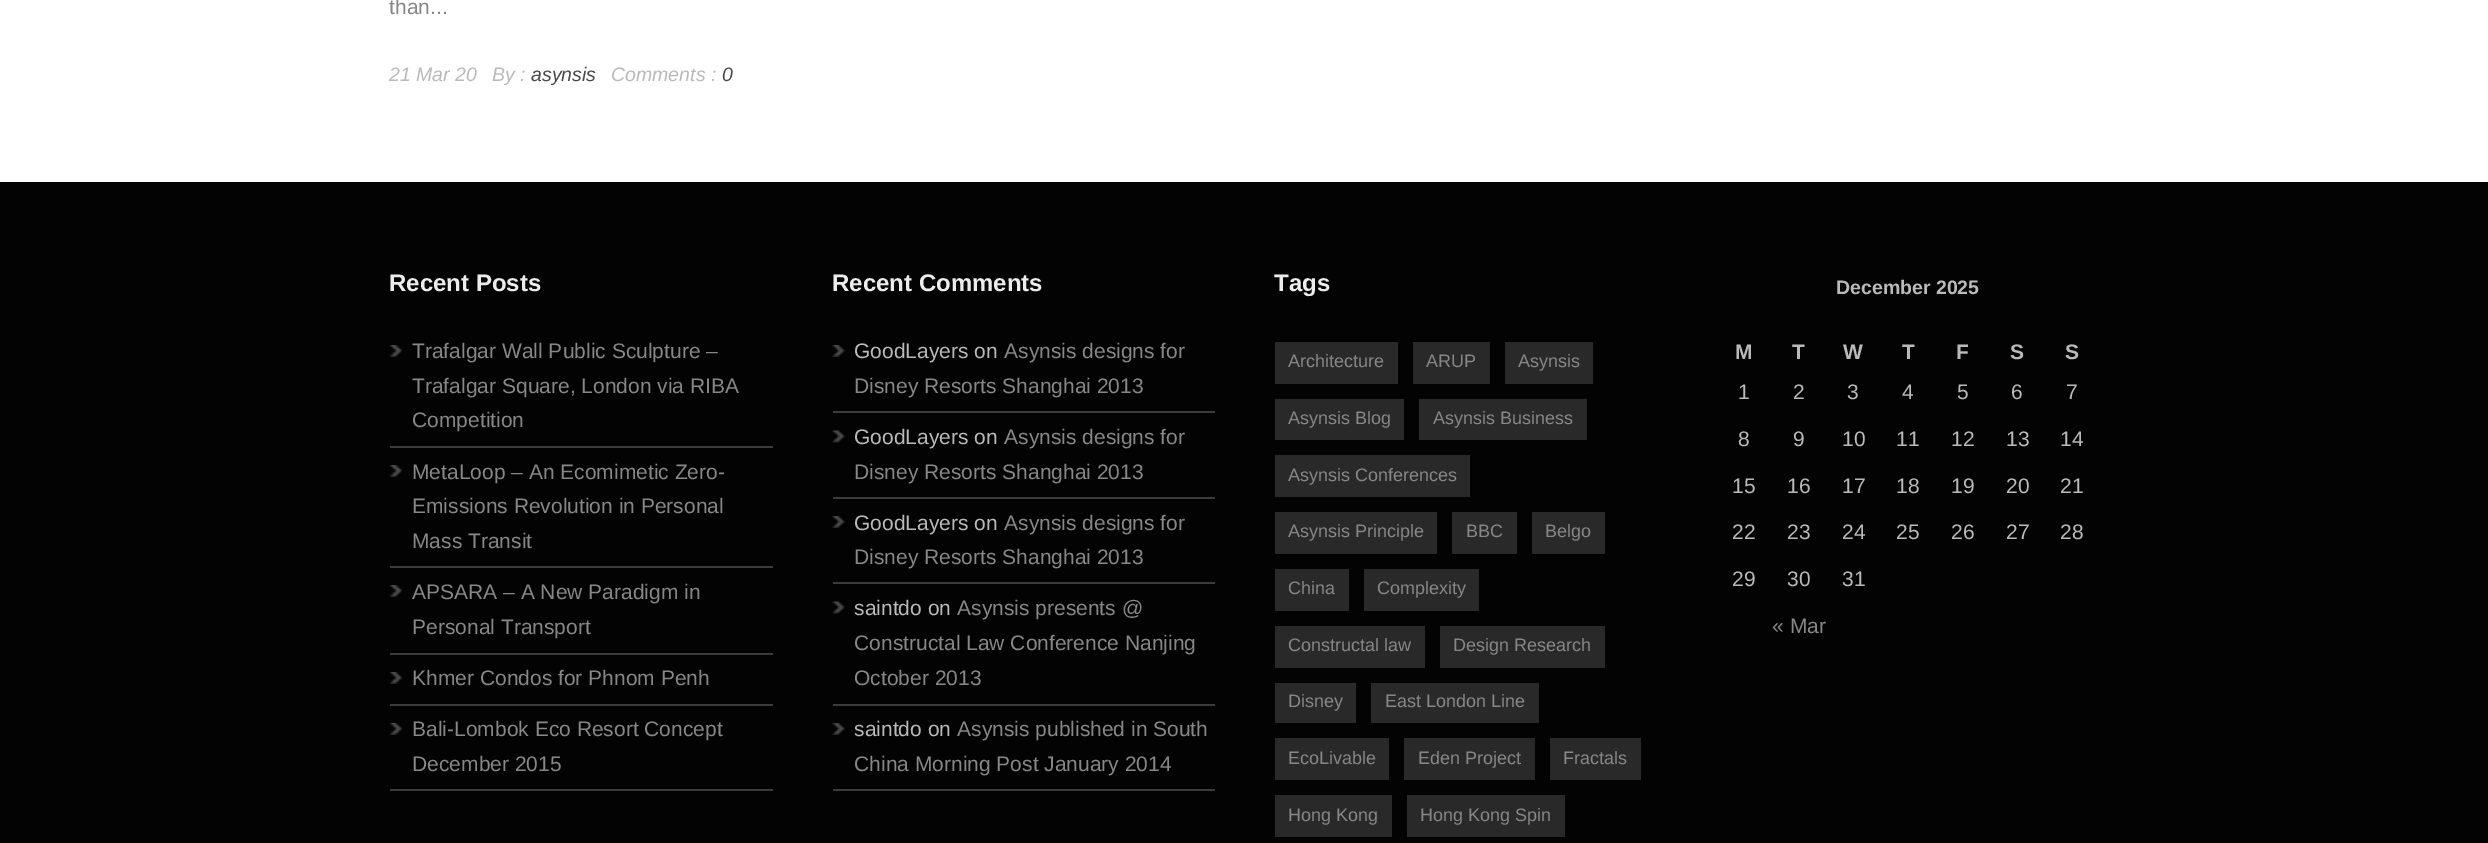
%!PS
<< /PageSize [2488 843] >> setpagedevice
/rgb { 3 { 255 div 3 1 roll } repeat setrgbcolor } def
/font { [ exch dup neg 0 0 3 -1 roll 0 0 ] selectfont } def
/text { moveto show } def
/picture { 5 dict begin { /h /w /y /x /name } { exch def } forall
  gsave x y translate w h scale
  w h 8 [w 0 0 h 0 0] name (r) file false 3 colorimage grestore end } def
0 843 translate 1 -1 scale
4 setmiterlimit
255 255 255 rgb
0 0 2488 843 rectfill
3 3 3 rgb
0 182 2488 661 rectfill
(img_01.rgb) 390 345 12 12 picture
59 59 59 rgb
390 446 383 2 rectfill
(img_01.rgb) 390 465 12 12 picture
390 566 383 2 rectfill
(img_01.rgb) 390 585 12 12 picture
390 653 383 2 rectfill
(img_01.rgb) 390 672 12 12 picture
390 704 383 2 rectfill
(img_01.rgb) 390 723 12 12 picture
390 789 383 2 rectfill
(img_02.rgb) 832 345 13 12 picture
833 411 382 2 rectfill
(img_03.rgb) 832 430 13 13 picture
833 497 382 2 rectfill
(img_02.rgb) 832 516 13 12 picture
833 582 382 2 rectfill
(img_03.rgb) 832 601 13 13 picture
833 704 382 2 rectfill
(img_02.rgb) 832 723 13 12 picture
833 789 382 2 rectfill
41 41 41 rgb
1275 342 123 42 rectfill
1413 342 77 42 rectfill
1505 342 88 42 rectfill
1275 399 129 41 rectfill
1419 399 168 41 rectfill
1275 455 195 42 rectfill
1275 512 162 42 rectfill
1452 512 65 42 rectfill
1532 512 73 42 rectfill
1275 569 74 42 rectfill
1364 569 115 42 rectfill
1275 626 150 42 rectfill
1440 626 165 42 rectfill
1275 683 81 40 rectfill
1371 683 168 40 rectfill
1275 738 114 42 rectfill
1404 738 131 42 rectfill
1550 738 91 42 rectfill
1275 795 117 42 rectfill
1407 795 158 42 rectfill
/LiberationSans-Regular 21 font
135 135 135 rgb
(than...) 389 14 text
/LiberationSans-Italic 19.5 font
186 186 186 rgb
(21 Mar 20) 389 81 text
(By :) 492 81 text
74 74 74 rgb
(asynsis) 531 81 text
186 186 186 rgb
(Comments :) 611 81 text
74 74 74 rgb
(0) 722 81 text
/LiberationSans-Bold 24 font
236 236 236 rgb
(Recent Posts) 389 291 text
/LiberationSans-Regular 21 font
135 135 135 rgb
(Trafalgar Wall Public Sculpture –) 412 358 text
(Trafalgar Square, London via RIBA) 412 393 text
(Competition) 412 427 text
(MetaLoop – An Ecomimetic Zero-) 412 479 text
(Emissions Revolution in Personal) 412 513 text
(Mass Transit) 412 548 text
(APSARA – A New Paradigm in) 412 599 text
(Personal Transport) 412 634 text
(Khmer Condos for Phnom Penh) 412 685 text
(Bali-Lombok Eco Resort Concept) 412 736 text
(December 2015) 412 771 text
/LiberationSans-Bold 24 font
236 236 236 rgb
(Recent Comments) 832 291 text
/LiberationSans-Regular 21 font
186 186 186 rgb
(GoodLayers on) 854 358 text
135 135 135 rgb
(Asynsis designs for) 1004 358 text
(Disney Resorts Shanghai 2013) 854 393 text
186 186 186 rgb
(GoodLayers on) 854 444 text
135 135 135 rgb
(Asynsis designs for) 1004 444 text
(Disney Resorts Shanghai 2013) 854 479 text
186 186 186 rgb
(GoodLayers on) 854 530 text
135 135 135 rgb
(Asynsis designs for) 1004 530 text
(Disney Resorts Shanghai 2013) 854 564 text
186 186 186 rgb
(saintdo on) 854 615 text
135 135 135 rgb
(Asynsis presents @) 957 615 text
(Constructal Law Conference Nanjing) 854 650 text
(October 2013) 854 685 text
186 186 186 rgb
(saintdo on) 854 736 text
135 135 135 rgb
(Asynsis published in South) 957 736 text
(China Morning Post January 2014) 854 771 text
/LiberationSans-Bold 24 font
236 236 236 rgb
(Tags) 1274 291 text
/LiberationSans-Regular 18 font
135 135 135 rgb
(Architecture) 1288 367 text
(ARUP) 1426 367 text
(Asynsis) 1518 367 text
(Asynsis Blog) 1288 424 text
(Asynsis Business) 1433 424 text
(Asynsis Conferences) 1288 481 text
(Asynsis Principle) 1288 537 text
(BBC) 1466 537 text
(Belgo) 1545 537 text
(China) 1288 594 text
(Complexity) 1377 594 text
(Constructal law) 1288 651 text
(Design Research) 1453 651 text
(Disney) 1288 707 text
(East London Line) 1385 707 text
(EcoLivable) 1288 764 text
(Eden Project) 1418 764 text
(Fractals) 1563 764 text
(Hong Kong) 1288 821 text
(Hong Kong Spin) 1420 821 text
/LiberationSans-Bold 19.5 font
186 186 186 rgb
(December 2025) 1836 294 text
/LiberationSans-Bold 21 font
(M) 1735 359 text
(T) 1792 359 text
(W) 1843 359 text
(T) 1902 359 text
(F) 1956 359 text
(S) 2010 359 text
(S) 2065 359 text
/LiberationSans-Regular 21 font
(1) 1738 399 text
(2) 1793 399 text
(3) 1847 399 text
(4) 1902 399 text
(5) 1957 399 text
(6) 2011 399 text
(7) 2066 399 text
(8) 1738 446 text
(9) 1793 446 text
(10) 1842 446 text
(11) 1896 446 text
(12) 1951 446 text
(13) 2006 446 text
(14) 2060 446 text
(15) 1732 493 text
(16) 1787 493 text
(17) 1842 493 text
(18) 1896 493 text
(19) 1951 493 text
(20) 2006 493 text
(21) 2060 493 text
(22) 1732 539 text
(23) 1787 539 text
(24) 1842 539 text
(25) 1896 539 text
(26) 1951 539 text
(27) 2006 539 text
(28) 2060 539 text
(29) 1732 586 text
(30) 1787 586 text
(31) 1842 586 text
135 135 135 rgb
(« Mar) 1772 633 text
showpage
